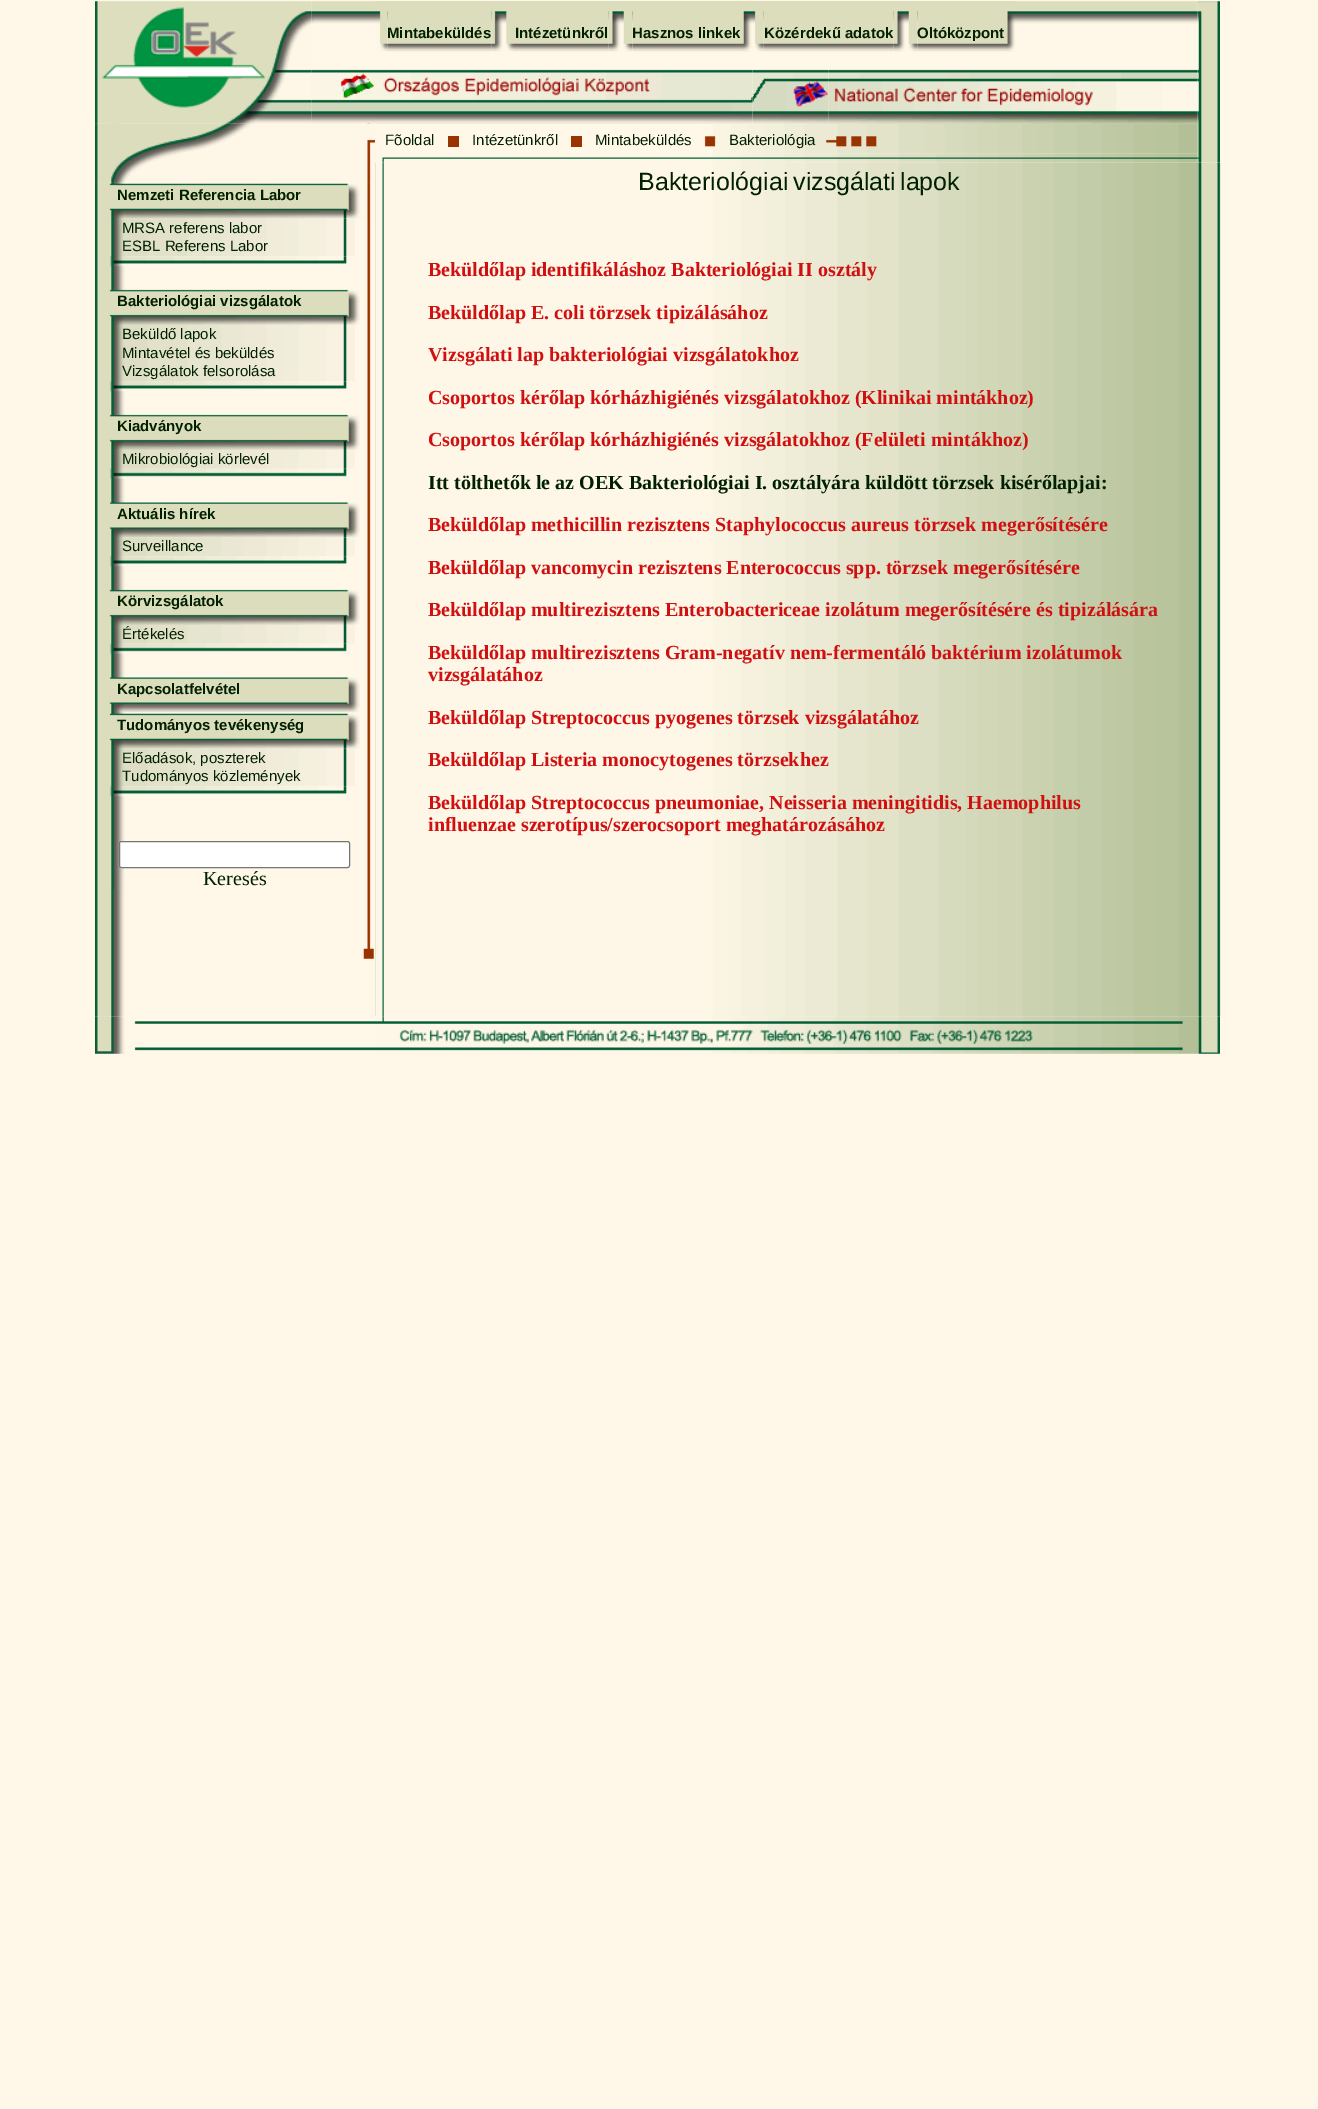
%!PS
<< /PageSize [1318 2109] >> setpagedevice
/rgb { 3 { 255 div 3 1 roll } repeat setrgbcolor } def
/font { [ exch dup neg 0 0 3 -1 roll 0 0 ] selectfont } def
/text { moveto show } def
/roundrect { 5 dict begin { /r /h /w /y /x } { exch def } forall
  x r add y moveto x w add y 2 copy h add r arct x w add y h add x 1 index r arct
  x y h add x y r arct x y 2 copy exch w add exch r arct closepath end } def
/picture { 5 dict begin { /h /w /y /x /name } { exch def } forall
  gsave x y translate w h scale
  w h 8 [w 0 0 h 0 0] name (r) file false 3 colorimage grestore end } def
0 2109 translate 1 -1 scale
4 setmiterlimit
255 248 232 rgb
0 0 1318 2109 rectfill
(img_16.rgb) 311 69 64 55 picture
(img_22.rgb) 95 123 276 60 picture
(img_01.rgb) 95 1 217 123 picture
(img_02.rgb) 311 1 64 23 picture
(img_03.rgb) 375 1 823 23 picture
(img_05.rgb) 387 1 105 51 picture
(img_04.rgb) 375 1 13 51 picture
(img_06.rgb) 491 1 24 51 picture
(img_07.rgb) 515 1 94 51 picture
(img_09.rgb) 632 1 108 51 picture
(img_08.rgb) 608 1 25 51 picture
(img_11.rgb) 763 1 131 51 picture
(img_13.rgb) 917 1 88 51 picture
(img_14.rgb) 1005 1 11 51 picture
(img_19.rgb) 752 69 77 55 picture
(img_24.rgb) 713 123 485 31 picture
(img_41.rgb) 375 162 846 855 picture
(img_15.rgb) 1197 1 23 162 picture
(img_17.rgb) 341 73 33 25 picture
(img_18.rgb) 375 69 378 55 picture
(img_20.rgb) 793 81 35 26 picture
(img_21.rgb) 828 69 370 55 picture
(img_28.rgb) 95 182 276 708 picture
(img_29.rgb) 95 182 276 37 picture
(img_23.rgb) 95 123 280 60 picture
153 51 0 rgb
448 136 11 11 rectfill
571 136 11 11 rectfill
(img_25.rgb) 704 136 12 11 picture
(img_26.rgb) 826 136 51 11 picture
(img_27.rgb) 375 153 823 10 picture
(img_30.rgb) 114 218 241 39 picture
(img_31.rgb) 110 256 237 11 picture
(img_32.rgb) 109 289 251 36 picture
(img_33.rgb) 114 325 241 57 picture
(img_31.rgb) 110 381 237 11 picture
(img_34.rgb) 109 414 251 36 picture
(img_35.rgb) 114 450 241 19 picture
(img_36.rgb) 110 468 237 11 picture
(img_37.rgb) 109 502 251 36 picture
(img_38.rgb) 114 537 241 20 picture
(img_31.rgb) 110 556 237 11 picture
(img_34.rgb) 109 589 251 36 picture
(img_35.rgb) 114 625 241 19 picture
(img_36.rgb) 110 643 237 11 picture
(img_39.rgb) 109 677 251 36 picture
(img_40.rgb) 109 712 251 37 picture
(img_30.rgb) 114 748 241 39 picture
(img_31.rgb) 110 786 237 11 picture
255 255 255 rgb
119.5 841.5 230 26 2 roundrect gsave fill grestore
118 118 118 rgb
stroke
(img_42.rgb) 95 890 17 125 picture
(img_43.rgb) 112 890 262 125 picture
(img_44.rgb) 95 1015 29 2 picture
(img_45.rgb) 95 1016 280 38 picture
(img_46.rgb) 375 1016 845 38 picture
/LiberationSans-Bold 15 font
0 32 0 rgb
(Mintabeküldés) 387 38 text
(Intézetünkről) 515 38 text
(Hasznos linkek) 632 38 text
(img_10.rgb) 740 1 24 51 picture
(Közérdekű adatok) 764 38 text
(img_12.rgb) 893 1 25 51 picture
(Oltóközpont) 917 38 text
/LiberationSans-Regular 15 font
(Fõoldal) 385 145 text
(Intézetünkről) 472 145 text
(Mintabeküldés) 595 145 text
(Bakteriológia) 729 145 text
/LiberationSans-Bold 15 font
(Nemzeti Referencia Labor) 117 200 text
/LiberationSans-Regular 15 font
(MRSA referens labor) 122 233 text
(ESBL Referens Labor) 122 251 text
/LiberationSans-Bold 15 font
(Bakteriológiai vizsgálatok) 117 306 text
/LiberationSans-Regular 15 font
(Beküldő lapok) 122 339 text
(Mintavétel és beküldés) 122 358 text
(Vizsgálatok felsorolása) 122 376 text
/LiberationSans-Bold 15 font
(Kiadványok) 117 431 text
/LiberationSans-Regular 15 font
(Mikrobiológiai körlevél) 122 464 text
/LiberationSans-Bold 15 font
(Aktuális hírek) 117 519 text
/LiberationSans-Regular 15 font
(Surveillance) 122 551 text
/LiberationSans-Bold 15 font
(Körvizsgálatok) 117 606 text
/LiberationSans-Regular 15 font
(Értékelés) 122 639 text
/LiberationSans-Bold 15 font
(Kapcsolatfelvétel) 117 694 text
(Tudományos tevékenység) 117 730 text
/LiberationSans-Regular 15 font
(Előadások, poszterek) 122 763 text
(Tudományos közlemények) 122 781 text
/LiberationSerif-Regular 20 font
(Keresés) 203 885 text
/LiberationSans-Regular 25 font
(Bakteriológiai) 638 190 text
(vizsgálati) 793 190 text
(lapok) 900 190 text
/LiberationSerif-Bold 20 font
208 16 16 rgb
(Beküldőlap identifikáláshoz Bakteriológiai II osztály) 428 276 text
(Beküldőlap E. coli törzsek tipizálásához) 428 319 text
(Vizsgálati lap bakteriológiai vizsgálatokhoz) 428 361 text
(Csoportos kérőlap kórházhigiénés vizsgálatokhoz \(Klinikai mintákhoz\)) 428 404 text
(Csoportos kérőlap kórházhigiénés vizsgálatokhoz \(Felületi mintákhoz\)) 428 446 text
0 32 0 rgb
(Itt tölthetők le az OEK Bakteriológiai I. osztályára küldött törzsek kisérőlapjai:) 428 489 text
208 16 16 rgb
(Beküldőlap methicillin rezisztens Staphylococcus aureus törzsek megerősítésére) 428 531 text
(Beküldőlap vancomycin rezisztens Enterococcus spp. törzsek megerősítésére) 428 574 text
(Beküldőlap multirezisztens Enterobactericeae izolátum megerősítésére és tipizálására) 428 616 text
(Beküldőlap multirezisztens Gram-negatív nem-fermentáló baktérium izolátumok) 428 659 text
(vizsgálatához) 428 681 text
(Beküldőlap Streptococcus pyogenes törzsek vizsgálatához) 428 724 text
(Beküldőlap Listeria monocytogenes törzsekhez) 428 766 text
(Beküldőlap Streptococcus pneumoniae, Neisseria meningitidis, Haemophilus) 428 809 text
(influenzae szerotípus/szerocsoport meghatározásához) 428 831 text
showpage
